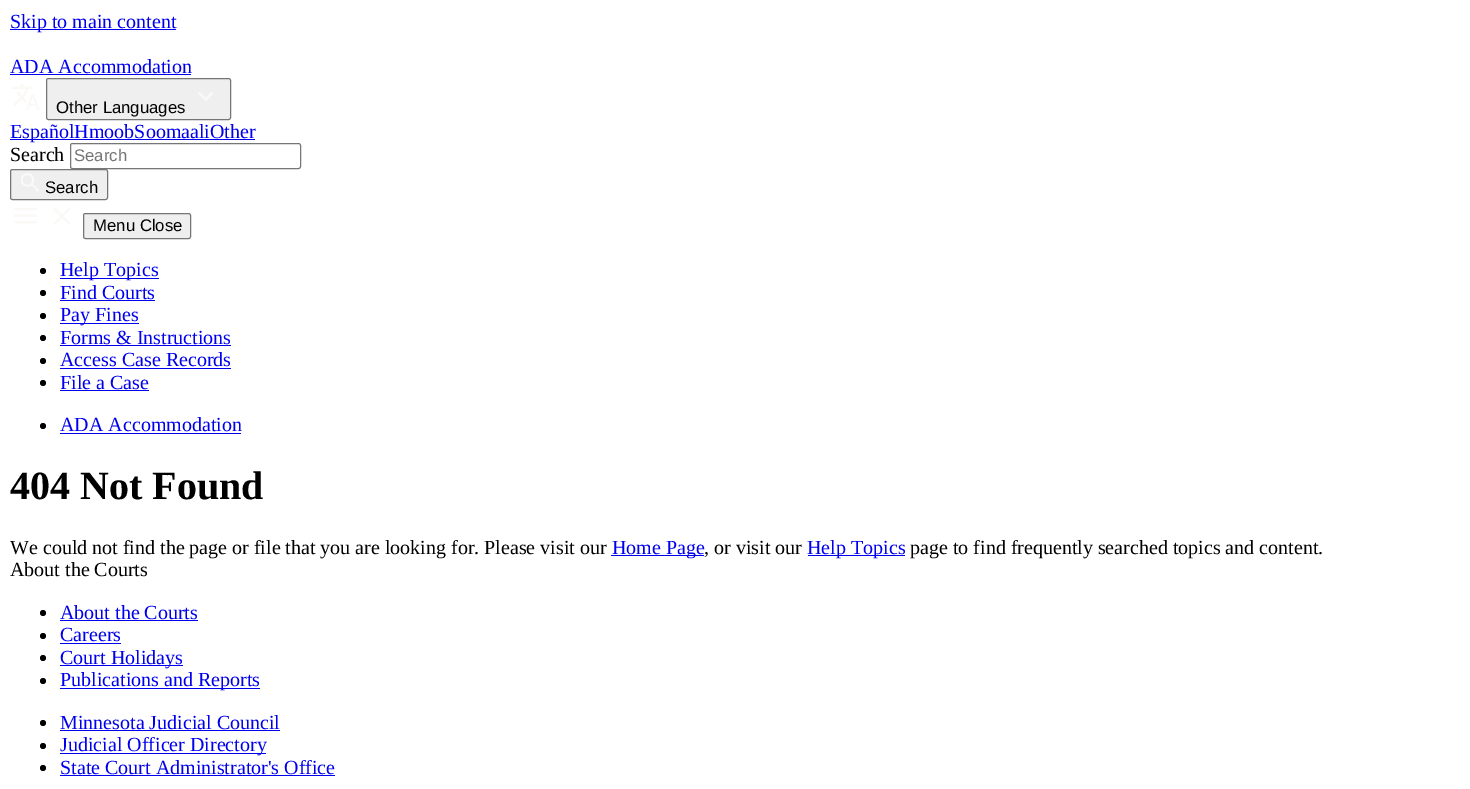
%!PS
<< /PageSize [1470 789] >> setpagedevice
/rgb { 3 { 255 div 3 1 roll } repeat setrgbcolor } def
/font { [ exch dup neg 0 0 3 -1 roll 0 0 ] selectfont } def
/text { moveto show } def
/circle { newpath 0 360 arc closepath } def
/roundrect { 5 dict begin { /r /h /w /y /x } { exch def } forall
  x r add y moveto x w add y 2 copy h add r arct x w add y h add x 1 index r arct
  x y h add x y r arct x y 2 copy exch w add exch r arct closepath end } def
/picture { 5 dict begin { /h /w /y /x /name } { exch def } forall
  gsave x y translate w h scale
  w h 8 [w 0 0 h 0 0] name (r) file false 3 colorimage grestore end } def
0 789 translate 1 -1 scale
4 setmiterlimit
255 255 255 rgb
0 0 1470 789 rectfill
0 0 238 rgb
10 29 166 1 rectfill
10 74 181 1 rectfill
(img_01.rgb) 11 84 29 26 picture
239 239 239 rgb
46.5 78.5 184 41 2 roundrect gsave fill grestore
118 118 118 rgb
stroke
(img_02.rgb) 198 92 15 9 picture
0 0 238 rgb
10 139 245 1 rectfill
118 118 118 rgb
70.5 143.5 230 25 2 roundrect stroke
239 239 239 rgb
10.5 169.5 97 30 2 roundrect gsave fill grestore
118 118 118 rgb
stroke
(img_03.rgb) 21 173 18 19 picture
(img_04.rgb) 14 208 23 16 picture
(img_05.rgb) 53 207 18 18 picture
239 239 239 rgb
83.5 213.5 107 25 2 roundrect gsave fill grestore
118 118 118 rgb
stroke
0 0 0 rgb
43 271 3 circle fill
0 0 238 rgb
60 278 99 1 rectfill
0 0 0 rgb
43 293 3 circle fill
0 0 238 rgb
60 300 95 1 rectfill
0 0 0 rgb
43 316 3 circle fill
0 0 238 rgb
60 323 79 1 rectfill
0 0 0 rgb
43 338 3 circle fill
0 0 238 rgb
60 345 171 1 rectfill
0 0 0 rgb
43 361 3 circle fill
0 0 238 rgb
60 368 171 1 rectfill
0 0 0 rgb
43 383 3 circle fill
0 0 238 rgb
60 390 89 1 rectfill
0 0 0 rgb
43 426 3 circle fill
0 0 238 rgb
60 433 181 1 rectfill
611 555 93 1 rectfill
808 555 97 1 rectfill
0 0 0 rgb
43 613 3 circle fill
0 0 238 rgb
60 620 138 1 rectfill
0 0 0 rgb
43 636 3 circle fill
0 0 238 rgb
60 643 61 1 rectfill
0 0 0 rgb
43 658 3 circle fill
0 0 238 rgb
60 665 123 1 rectfill
0 0 0 rgb
43 681 3 circle fill
0 0 238 rgb
60 688 200 1 rectfill
0 0 0 rgb
43 723 3 circle fill
0 0 238 rgb
60 730 220 1 rectfill
0 0 0 rgb
43 746 3 circle fill
0 0 238 rgb
60 753 206 1 rectfill
0 0 0 rgb
43 768 3 circle fill
0 0 238 rgb
60 775 275 1 rectfill
/LiberationSerif-Regular 20 font
(Skip to main content) 10 28 text
(ADA Accommodation) 10 73 text
/LiberationSans-Regular 16.75 font
0 0 0 rgb
(Other Languages) 56 113 text
/LiberationSerif-Regular 20 font
0 0 238 rgb
(EspañolHmoobSoomaaliOther) 10 138 text
0 0 0 rgb
(Search) 10 161 text
/LiberationSans-Regular 16.75 font
117 117 117 rgb
(Search) 74 161 text
0 0 0 rgb
(Search) 45 193 text
(Menu Close) 93 231 text
/LiberationSerif-Regular 20 font
0 0 238 rgb
(Help Topics) 60 276 text
(Find Courts) 60 299 text
(Pay Fines) 60 321 text
(Forms & Instructions) 60 344 text
(Access Case Records) 60 366 text
(File a Case) 60 389 text
(ADA Accommodation) 60 431 text
/LiberationSerif-Bold 40 font
0 0 0 rgb
(404 Not Found) 10 499 text
/LiberationSerif-Regular 20 font
(We could not find the page or file that you are looking for. Please visit our) 10 554 text
0 0 238 rgb
(Home Page) 612 554 text
0 0 0 rgb
(, or visit our) 704 554 text
0 0 238 rgb
(Help Topics) 807 554 text
0 0 0 rgb
(page to find frequently searched topics and content.) 910 554 text
(About the Courts) 10 576 text
0 0 238 rgb
(About the Courts) 60 619 text
(Careers) 60 641 text
(Court Holidays) 60 664 text
(Publications and Reports) 60 686 text
(Minnesota Judicial Council) 60 729 text
(Judicial Officer Directory) 60 751 text
(State Court Administrator's Office) 60 774 text
showpage
